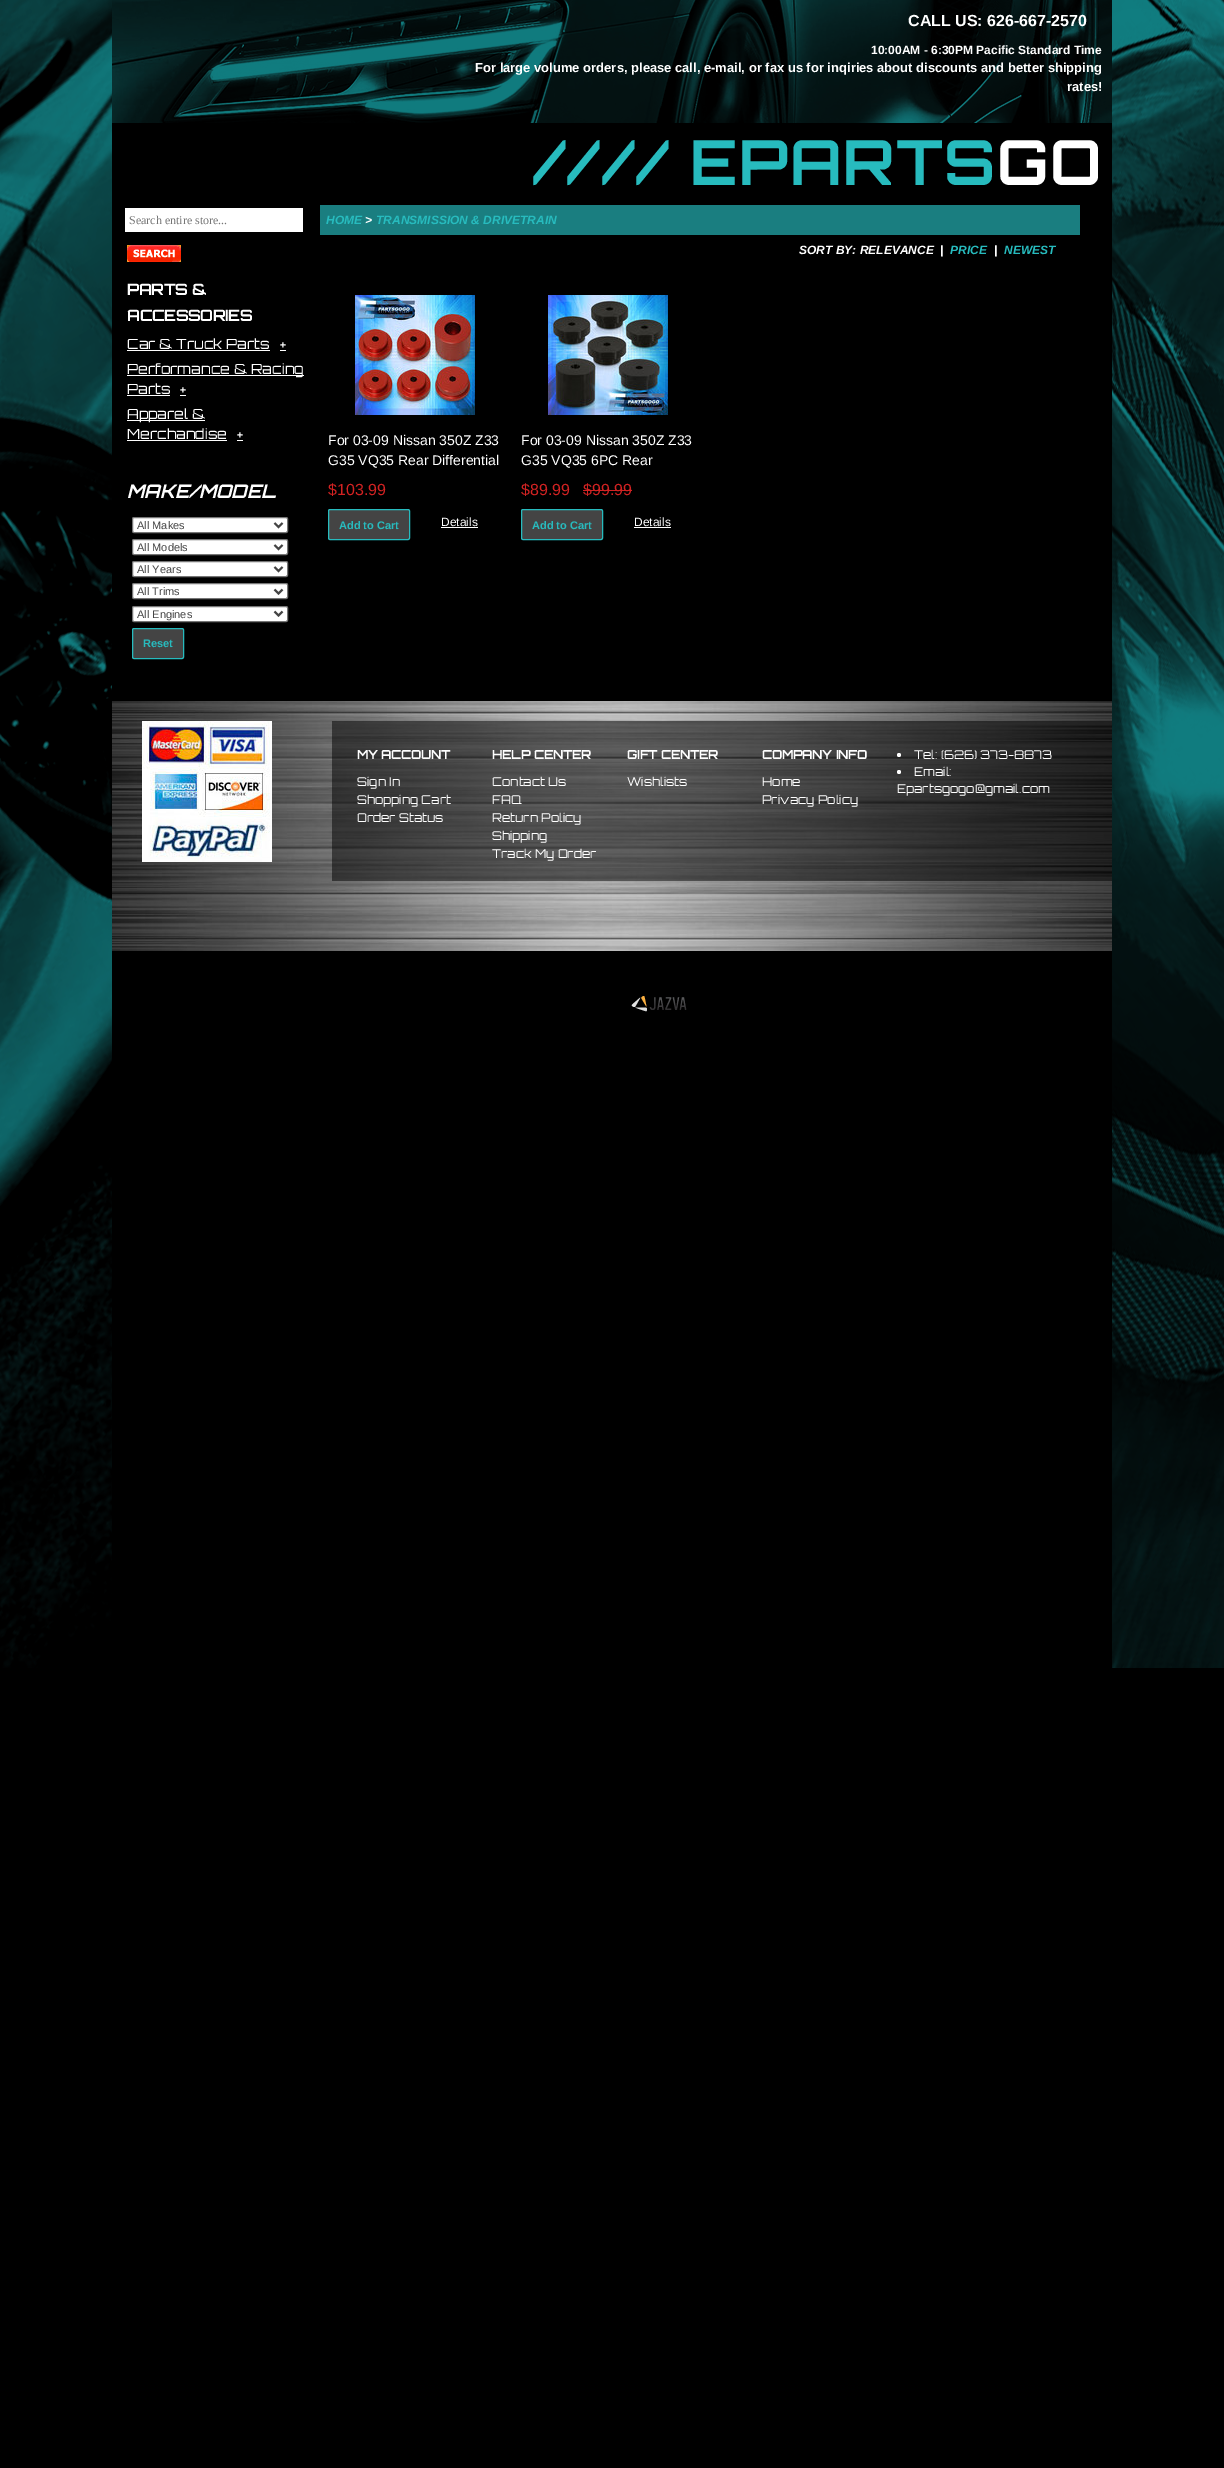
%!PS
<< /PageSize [1224 2468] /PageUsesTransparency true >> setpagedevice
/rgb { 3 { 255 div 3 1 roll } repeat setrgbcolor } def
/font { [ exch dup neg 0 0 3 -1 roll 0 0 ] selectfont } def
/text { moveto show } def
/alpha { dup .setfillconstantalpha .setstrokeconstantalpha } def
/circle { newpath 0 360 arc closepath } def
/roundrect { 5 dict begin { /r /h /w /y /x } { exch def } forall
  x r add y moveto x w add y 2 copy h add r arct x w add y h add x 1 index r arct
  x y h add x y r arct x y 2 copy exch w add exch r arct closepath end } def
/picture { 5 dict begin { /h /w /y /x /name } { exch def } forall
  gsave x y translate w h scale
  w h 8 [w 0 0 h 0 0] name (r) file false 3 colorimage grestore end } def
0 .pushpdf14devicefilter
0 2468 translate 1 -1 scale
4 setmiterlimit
0 0 0 rgb
0 0 1224 2468 rectfill
(img_01.rgb) 0 0 1224 1668 picture
255 255 255 rgb
125 208 178 24 rectfill
(img_02.rgb) 127 245 54 17 picture
127 350 143 1 rectfill
280 350 6 1 rectfill
127 375 177 1 rectfill
127 395 43 1 rectfill
180 395 6 1 rectfill
127 420 78 1 rectfill
127 440 100 1 rectfill
237 440 6 1 rectfill
132.5 517.5 155 15 1.5 roundrect gsave fill grestore
118 118 118 rgb
stroke
68 68 68 rgb
2 setlinewidth
274.5 523 moveto 4 4 rlineto 4 -4 rlineto stroke
255 255 255 rgb
132.5 539.5 155 15 1.5 roundrect gsave fill grestore
118 118 118 rgb
1 setlinewidth
stroke
68 68 68 rgb
2 setlinewidth
274.5 545 moveto 4 4 rlineto 4 -4 rlineto stroke
255 255 255 rgb
132.5 561.5 155 15 1.5 roundrect gsave fill grestore
118 118 118 rgb
1 setlinewidth
stroke
68 68 68 rgb
2 setlinewidth
274.5 567 moveto 4 4 rlineto 4 -4 rlineto stroke
255 255 255 rgb
132.5 583.5 155 15 1.5 roundrect gsave fill grestore
118 118 118 rgb
1 setlinewidth
stroke
68 68 68 rgb
2 setlinewidth
274.5 589.5 moveto 4 4 rlineto 4 -4 rlineto stroke
255 255 255 rgb
132.5 606.5 155 15 1.5 roundrect gsave fill grestore
118 118 118 rgb
1 setlinewidth
stroke
68 68 68 rgb
2 setlinewidth
274.5 611.5 moveto 4 4 rlineto 4 -4 rlineto stroke
132.5 628.5 51 30 1.5 roundrect gsave fill grestore
39 187 190 rgb
1 setlinewidth
stroke
26 126 128 rgb
320 205 760 30 rectfill
(img_03.rgb) 355 295 120 120 picture
68 68 68 rgb
328.5 509.5 81 30 1.5 roundrect gsave fill grestore
39 187 190 rgb
stroke
255 255 255 rgb
441 527 37 1 rectfill
(img_04.rgb) 548 295 120 120 picture
210 34 34 rgb
583 490 49 1 rectfill
68 68 68 rgb
521.5 509.5 81 30 1.5 roundrect gsave fill grestore
39 187 190 rgb
stroke
255 255 255 rgb
634 527 37 1 rectfill
(img_05.rgb) 112 701 1000 250 picture
(img_06.rgb) 142 721 130 141 picture
0.5 alpha
0 0 0 rgb
332 721 780 160 rectfill
1 alpha
255 255 255 rgb
899 755 2 circle fill
899 772 2 circle fill
(img_07.rgb) 631 996 56 16 picture
/LiberationSans-Bold 16 font
(CALL US: 626-667-2570) 908 26 text
/LiberationSans-Bold 12 font
(10:00AM - 6:30PM Pacific Standard Time) 871 54 text
/LiberationSans-Bold 13 font
(For large volume orders, please call, e-mail, or fax us for inqiries about discounts and better shipping) 475 72 text
(rates!) 1067 91 text
/Orbitron-Bold 60 font
39 187 190 rgb
533 185 moveto 3 0 (//// EPARTS) ashow
255 255 255 rgb
997 185 moveto 3 0 (GO) ashow
/LiberationSerif-Regular 12 font
117 117 117 rgb
(Search entire store...) 129 224 text
/Orbitron-Bold 15 font
255 255 255 rgb
(PARTS &) 127 295 text
(ACCESSORIES) 127 321 text
/Orbitron-Regular 14 font
(Car & Truck Parts) 127 349 text
(+) 280 349 text
(Performance & Racing) 127 374 text
(Parts) 127 394 text
(+) 180 394 text
(Apparel &) 127 419 text
(Merchandise) 127 439 text
(+) 237 439 text
/Orbitron-BoldItalic 18 font
127 498 moveto 0.5 0 (MAKE/MODEL) ashow
/LiberationSans-Regular 11 font
68 68 68 rgb
(All Makes) 137 529 text
(All Models) 137 551 text
(All Years) 137 573 text
(All Trims) 137 595 text
(All Engines) 137 618 text
/LiberationSans-Bold 11 font
39 187 190 rgb
(Reset) 143 647 text
/LiberationSans-BoldItalic 12 font
(HOME) 326 224 text
255 255 255 rgb
(>) 365 224 text
39 187 190 rgb
(TRANSMISSION & DRIVETRAIN) 376 224 text
255 255 255 rgb
(SORT BY: RELEVANCE) 799 254 text
(|) 940 254 text
39 187 190 rgb
(PRICE) 950 254 text
255 255 255 rgb
(|) 994 254 text
39 187 190 rgb
(NEWEST) 1004 254 text
/LiberationSans-Regular 14 font
255 255 255 rgb
(For 03-09 Nissan 350Z Z33) 328 445 text
(G35 VQ35 Rear Differential) 328 465 text
/LiberationSans-Regular 16 font
210 34 34 rgb
($103.99) 328 495 text
/LiberationSans-Bold 11 font
39 187 190 rgb
(Add to Cart) 339 529 text
/LiberationSans-Regular 12 font
255 255 255 rgb
(Details) 441 526 text
/LiberationSans-Regular 14 font
(For 03-09 Nissan 350Z Z33) 521 445 text
(G35 VQ35 6PC Rear) 521 465 text
/LiberationSans-Regular 16 font
210 34 34 rgb
($89.99) 521 495 text
($99.99) 583 495 text
/LiberationSans-Bold 11 font
39 187 190 rgb
(Add to Cart) 532 529 text
/LiberationSans-Regular 12 font
255 255 255 rgb
(Details) 634 526 text
/Orbitron-Bold 12 font
(MY ACCOUNT) 357 759 text
/Orbitron-Regular 12 font
(Sign In) 357 786 text
(Shopping Cart) 357 804 text
(Order Status) 357 822 text
/Orbitron-Bold 12 font
(HELP CENTER) 492 759 text
/Orbitron-Regular 12 font
(Contact Us) 492 786 text
(FAQ) 492 804 text
(Return Policy) 492 822 text
(Shipping) 492 840 text
(Track My Order) 492 858 text
/Orbitron-Bold 12 font
(GIFT CENTER) 627 759 text
/Orbitron-Regular 12 font
(Wishlists) 627 786 text
/Orbitron-Bold 12 font
(COMPANY INFO) 762 759 text
/Orbitron-Regular 12 font
(Home) 762 786 text
(Privacy Policy) 762 804 text
(Tel: \(626\) 373-8873) 914 759 text
(Email:) 914 776 text
(Epartsgogo@gmail.com) 897 793 text
.poppdf14devicefilter showpage
